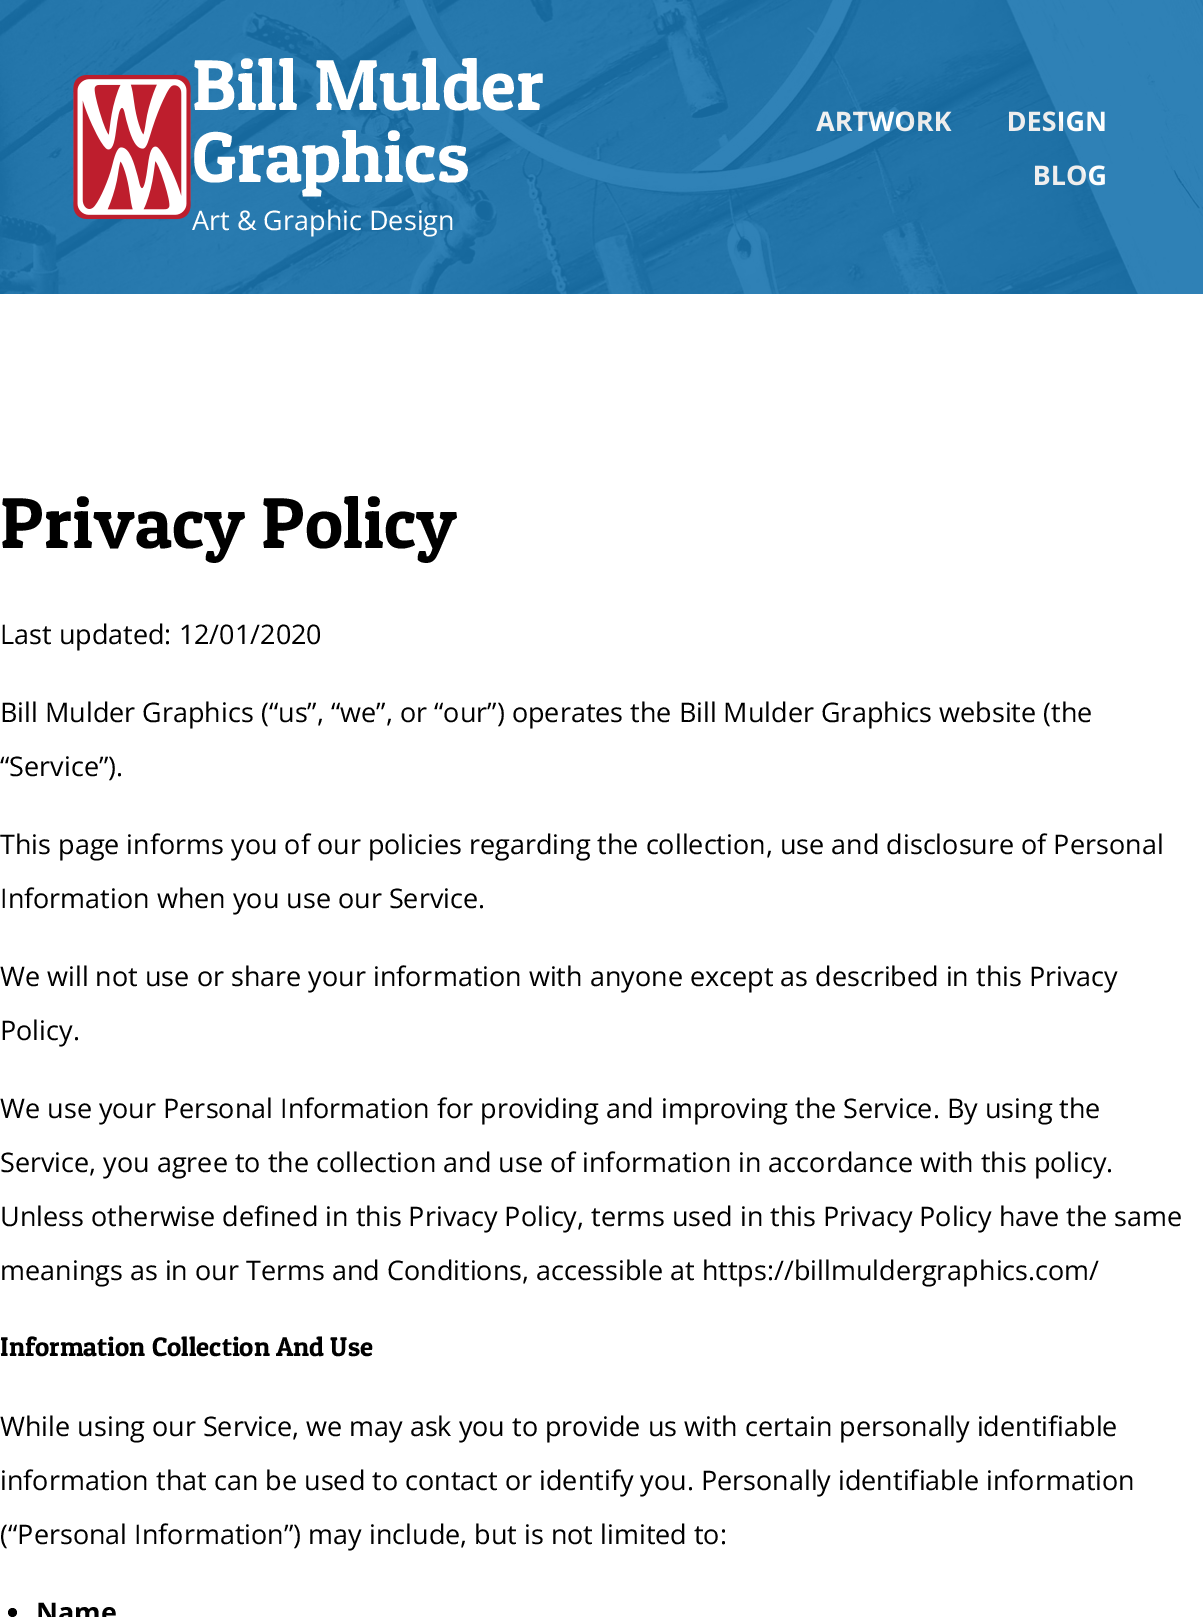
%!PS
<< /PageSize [1203 1617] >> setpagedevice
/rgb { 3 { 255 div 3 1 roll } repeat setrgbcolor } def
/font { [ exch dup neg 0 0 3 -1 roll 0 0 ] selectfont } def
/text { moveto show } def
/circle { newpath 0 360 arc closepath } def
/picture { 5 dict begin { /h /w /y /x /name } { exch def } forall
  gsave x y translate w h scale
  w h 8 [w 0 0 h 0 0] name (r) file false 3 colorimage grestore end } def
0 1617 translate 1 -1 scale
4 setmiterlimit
255 255 255 rgb
0 0 1203 1617 rectfill
24 116 175 rgb
0 0 1203 294 rectfill
0 0 0 rgb
12.5 1612.5 4.5 circle fill
/OpenSans-Bold 27 font
255 255 255 rgb
(ARTWORK) 816 131 text
(DESIGN) 1007 131 text
(BLOG) 1033 185 text
(img_01.rgb) 0 0 1203 294 picture
/PatuaOne-Regular 72 font
(Graphics) 192 182 text
(Bill Mulder) 192 110 text
/OpenSans-Regular 27 font
(Art & Graphic Design) 192 230 text
(img_02.rgb) 73 74 118 146 picture
/PatuaOne-Regular 72 font
0 0 0 rgb
(Privacy Policy) 0 548 text
/OpenSans-Regular 27 font
(Last updated: 12/01/2020) 0 644 text
(Bill Mulder Graphics \(“us”, “we”, or “our”\) operates the Bill Mulder Graphics website \(the) 0 722 text
(“Service”\).) 0 776 text
(This page informs you of our policies regarding the collection, use and disclosure of Personal) 0 854 text
(Information when you use our Service.) 0 908 text
(We will not use or share your information with anyone except as described in this Privacy) 0 986 text
(Policy.) 0 1040 text
(We use your Personal Information for providing and improving the Service. By using the) 0 1118 text
(Service, you agree to the collection and use of information in accordance with this policy.) 0 1172 text
(Unless otherwise defined in this Privacy Policy, terms used in this Privacy Policy have the same) 0 1226 text
(meanings as in our Terms and Conditions, accessible at https://billmuldergraphics.com/) 0 1280 text
/PatuaOne-Regular 27 font
(Information Collection And Use) 0 1356 text
/OpenSans-Regular 27 font
(While using our Service, we may ask you to provide us with certain personally identifiable) 0 1436 text
(information that can be used to contact or identify you. Personally identifiable information) 0 1490 text
(\(“Personal Information”\) may include, but is not limited to:) 0 1544 text
/OpenSans-Bold 27 font
(Name) 36 1622 text
showpage
